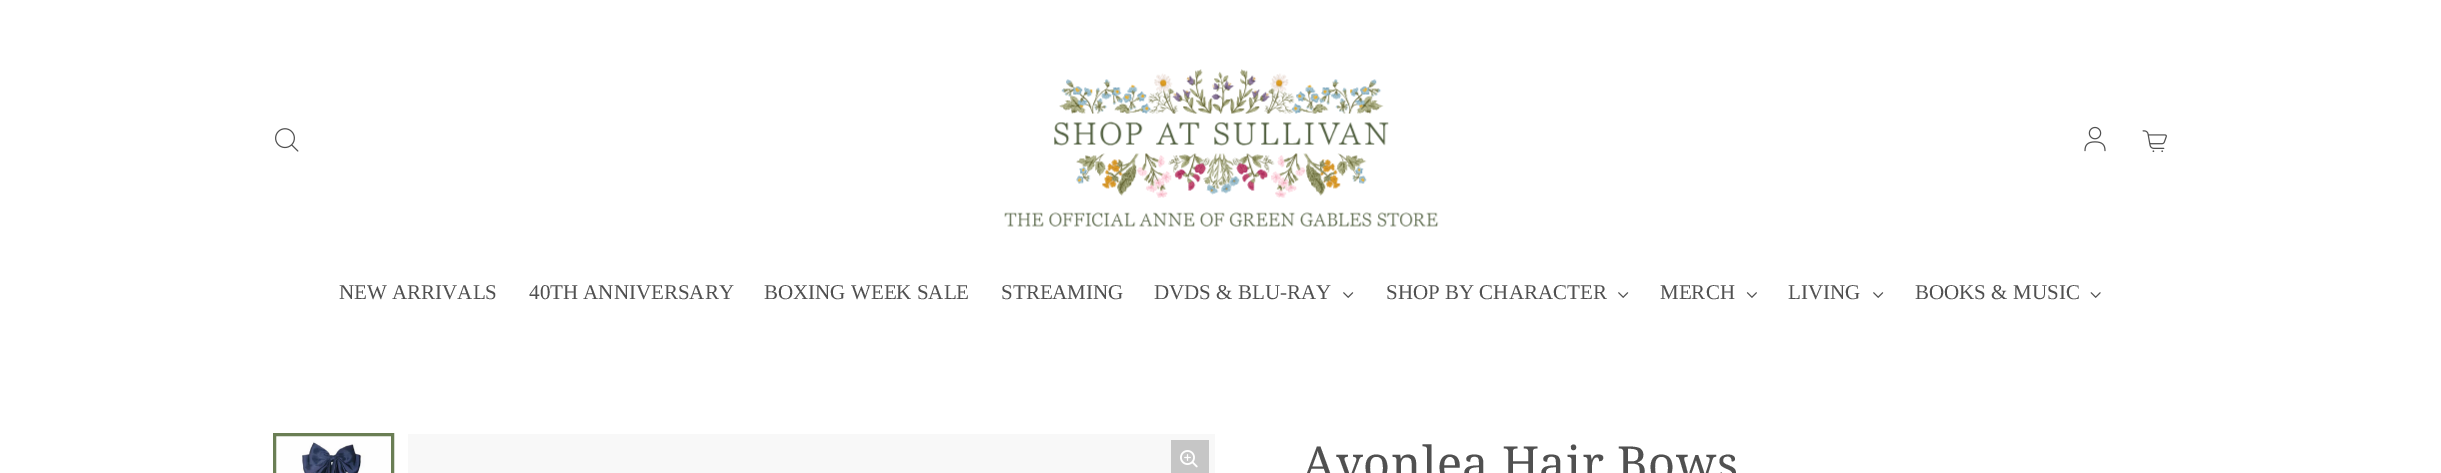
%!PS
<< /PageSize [2441 473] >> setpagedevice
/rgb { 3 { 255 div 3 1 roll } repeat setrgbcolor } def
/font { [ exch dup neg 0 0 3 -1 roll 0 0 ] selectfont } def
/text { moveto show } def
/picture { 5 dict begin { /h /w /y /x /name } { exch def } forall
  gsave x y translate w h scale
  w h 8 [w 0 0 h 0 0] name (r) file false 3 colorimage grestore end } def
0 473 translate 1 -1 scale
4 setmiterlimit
255 255 255 rgb
0 0 2441 473 rectfill
(img_01.rgb) 275 128 24 24 picture
(img_02.rgb) 1004 69 435 158 picture
(img_03.rgb) 2084 126 22 26 picture
(img_04.rgb) 2142 130 25 23 picture
(img_05.rgb) 1343 292 11 6 picture
(img_05.rgb) 1618 292 11 6 picture
(img_06.rgb) 1746 292 11 6 picture
(img_05.rgb) 1873 292 11 6 picture
(img_07.rgb) 2090 292 11 6 picture
(img_08.rgb) 276 436 115 37 picture
106 126 84 rgb
3 setlinewidth
274.5 434.5 118 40 rectstroke
248 248 248 rgb
408 434 807 39 rectfill
198 198 198 rgb
1171 440 38 33 rectfill
(img_09.rgb) 1180 450 18 18 picture
/LiberationSerif-Regular 21 font
80 80 80 rgb
(NEW ARRIVALS) 339 299 text
(40TH ANNIVERSARY) 529 299 text
(BOXING WEEK SALE) 764 299 text
(STREAMING) 1001 299 text
(DVDS & BLU-RAY) 1154 299 text
(SHOP BY CHARACTER) 1386 299 text
(MERCH) 1660 299 text
(LIVING) 1788 299 text
(BOOKS & MUSIC) 1915 299 text
/NotoSerif-Regular 46.9 font
1302 480 moveto 0.5 0 (Avonlea Hair Bows) ashow
showpage
